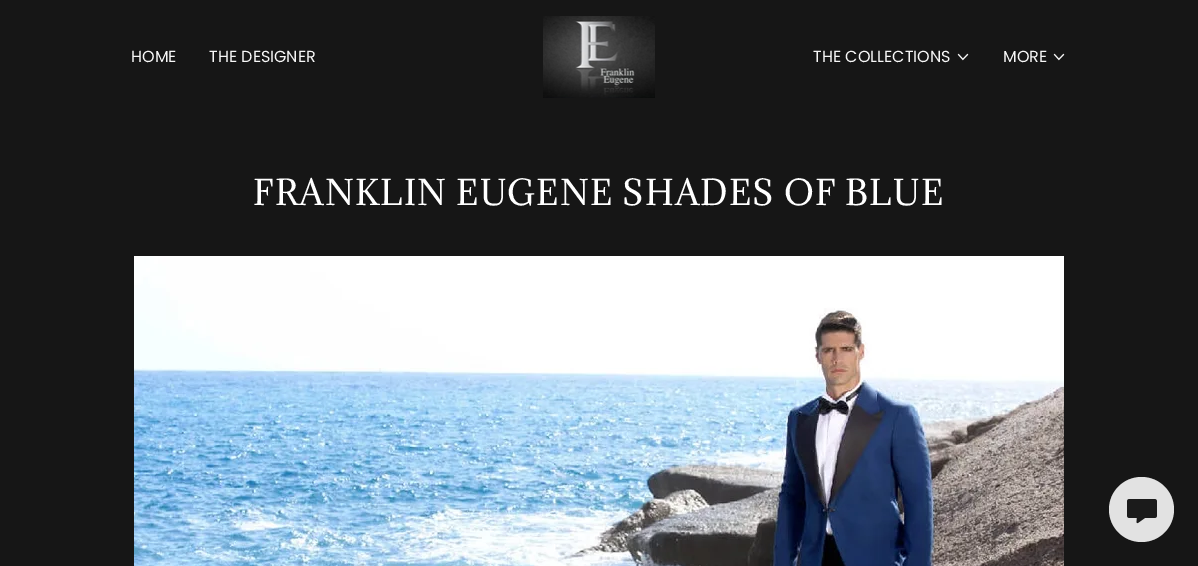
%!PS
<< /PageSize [1198 566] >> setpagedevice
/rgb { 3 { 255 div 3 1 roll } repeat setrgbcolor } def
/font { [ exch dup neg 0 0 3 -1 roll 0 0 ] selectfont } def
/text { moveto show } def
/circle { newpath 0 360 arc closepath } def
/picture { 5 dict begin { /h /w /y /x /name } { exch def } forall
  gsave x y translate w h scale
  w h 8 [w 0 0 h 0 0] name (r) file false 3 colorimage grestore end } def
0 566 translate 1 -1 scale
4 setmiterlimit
22 22 22 rgb
0 0 1198 566 rectfill
(img_01.rgb) 543 16 112 82 picture
(img_02.rgb) 957 53 12 8 picture
(img_02.rgb) 1053 53 12 8 picture
(img_03.rgb) 134 256 930 310 picture
226 226 226 rgb
1141.5 509.5 32.5 circle fill
(img_04.rgb) 1127 499 30 25 picture
/Poppins-Regular 16 font
247 247 247 rgb
(HOME) 131 62 text
(THE DESIGNER) 209 62 text
(THE COLLECTIONS) 813 62 text
(MORE) 1003 62 text
/Adamina-Regular 33 font
255 255 255 rgb
253 205 moveto 1 0 (FRANKLIN EUGENE SHADES OF BLUE) ashow
showpage
